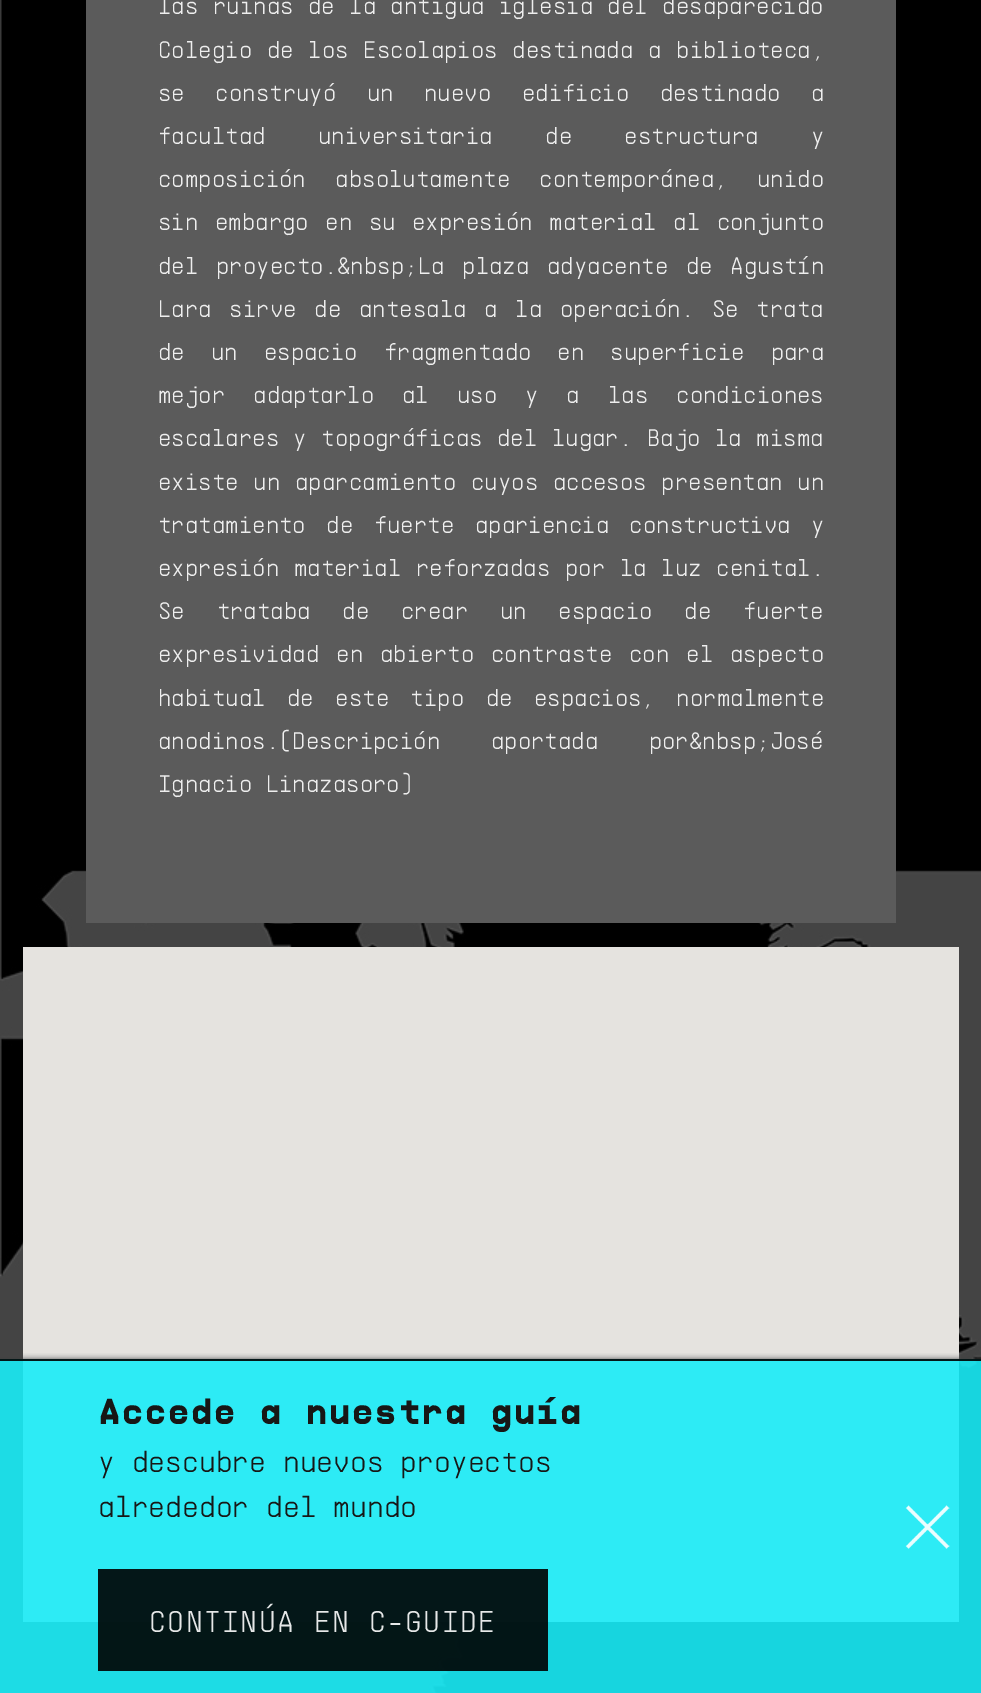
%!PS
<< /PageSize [981 1693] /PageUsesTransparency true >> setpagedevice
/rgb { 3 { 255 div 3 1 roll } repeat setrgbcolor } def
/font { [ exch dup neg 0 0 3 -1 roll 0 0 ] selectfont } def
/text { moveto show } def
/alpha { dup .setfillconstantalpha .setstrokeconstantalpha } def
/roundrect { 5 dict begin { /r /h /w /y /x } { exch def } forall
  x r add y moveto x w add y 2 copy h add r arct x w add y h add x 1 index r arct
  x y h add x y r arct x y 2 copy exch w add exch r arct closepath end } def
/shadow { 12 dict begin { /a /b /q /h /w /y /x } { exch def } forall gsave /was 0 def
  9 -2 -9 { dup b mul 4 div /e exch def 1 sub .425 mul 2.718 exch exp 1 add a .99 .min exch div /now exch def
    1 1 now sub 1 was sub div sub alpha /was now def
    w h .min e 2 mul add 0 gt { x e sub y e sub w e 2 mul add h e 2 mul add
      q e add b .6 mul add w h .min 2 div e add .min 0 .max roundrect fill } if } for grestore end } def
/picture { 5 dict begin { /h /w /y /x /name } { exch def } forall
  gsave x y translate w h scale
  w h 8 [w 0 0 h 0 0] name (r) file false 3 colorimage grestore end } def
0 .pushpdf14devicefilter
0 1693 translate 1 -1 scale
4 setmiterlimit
255 255 255 rgb
0 0 981 1693 rectfill
(img_01.rgb) 0 0 981 1693 picture
91 91 91 rgb
86 0 810 923 rectfill
229 227 223 rgb
23 947 936 675 rectfill
gsave
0 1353 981 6 rectclip
64 64 64 rgb
-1 1359 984 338 0 3 0.9 shadow
grestore
0.9 alpha
25 236 247 rgb
0 1359 981 334 rectfill
0 0 0 rgb
0 1359 981 2 rectfill
98 1569 450 102 rectfill
1 alpha
(img_02.rgb) 905 1505 45 44 picture
/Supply-Light 24 font
238 238 238 rgb
158 14 moveto 1 0 32 (las ruinas de la antigua iglesia del desaparecido) widthshow
158 58 moveto 1.25 0 32 (Colegio de los Escolapios destinada a biblioteca,) widthshow
158 101 moveto 17 0 32 (se construyó un nuevo edificio destinado a) widthshow
158 144 moveto 39 0 32 (facultad universitaria de estructura y) widthshow
158 187 moveto 16 0 32 (composición absolutamente contemporánea, unido) widthshow
158 230 moveto 3 0 32 (sin embargo en su expresión material al conjunto) widthshow
158 274 moveto 4.25 0 32 (del proyecto.&nbsp;La plaza adyacente de Agustín) widthshow
158 317 moveto 4.25 0 32 (Lara sirve de antesala a la operación. Se trata) widthshow
158 360 moveto 12.5 0 32 (de un espacio fragmentado en superficie para) widthshow
158 403 moveto 14.5 0 32 (mejor adaptarlo al uso y a las condiciones) widthshow
158 446 moveto 1 0 32 (escalares y topográficas del lugar. Bajo la misma) widthshow
158 490 moveto 1.25 0 32 (existe un aparcamiento cuyos accesos presentan un) widthshow
158 533 moveto 7 0 32 (tratamiento de fuerte apariencia constructiva y) widthshow
158 576 moveto 1.25 0 32 (expresión material reforzadas por la luz cenital.) widthshow
158 619 moveto 18.25 0 32 (Se trataba de crear un espacio de fuerte) widthshow
158 662 moveto 3.5 0 32 (expresividad en abierto contraste con el aspecto) widthshow
158 706 moveto 8 0 32 (habitual de este tipo de espacios, normalmente) widthshow
158 749 moveto 37 0 32 (anodinos.\(Descripción aportada por&nbsp;José) widthshow
(Ignacio Linazasoro\)) 158 792 text
/Supply-Bold 36 font
23 23 22 rgb
(Accede a nuestra guía) 98 1424 text
/Supply-Light 30 font
(y descubre nuevos proyectos) 98 1472 text
(alrededor del mundo) 98 1517 text
230 232 232 rgb
149 1632 moveto 1.5 0 (CONTINÚA EN C-GUIDE) ashow
.poppdf14devicefilter showpage
